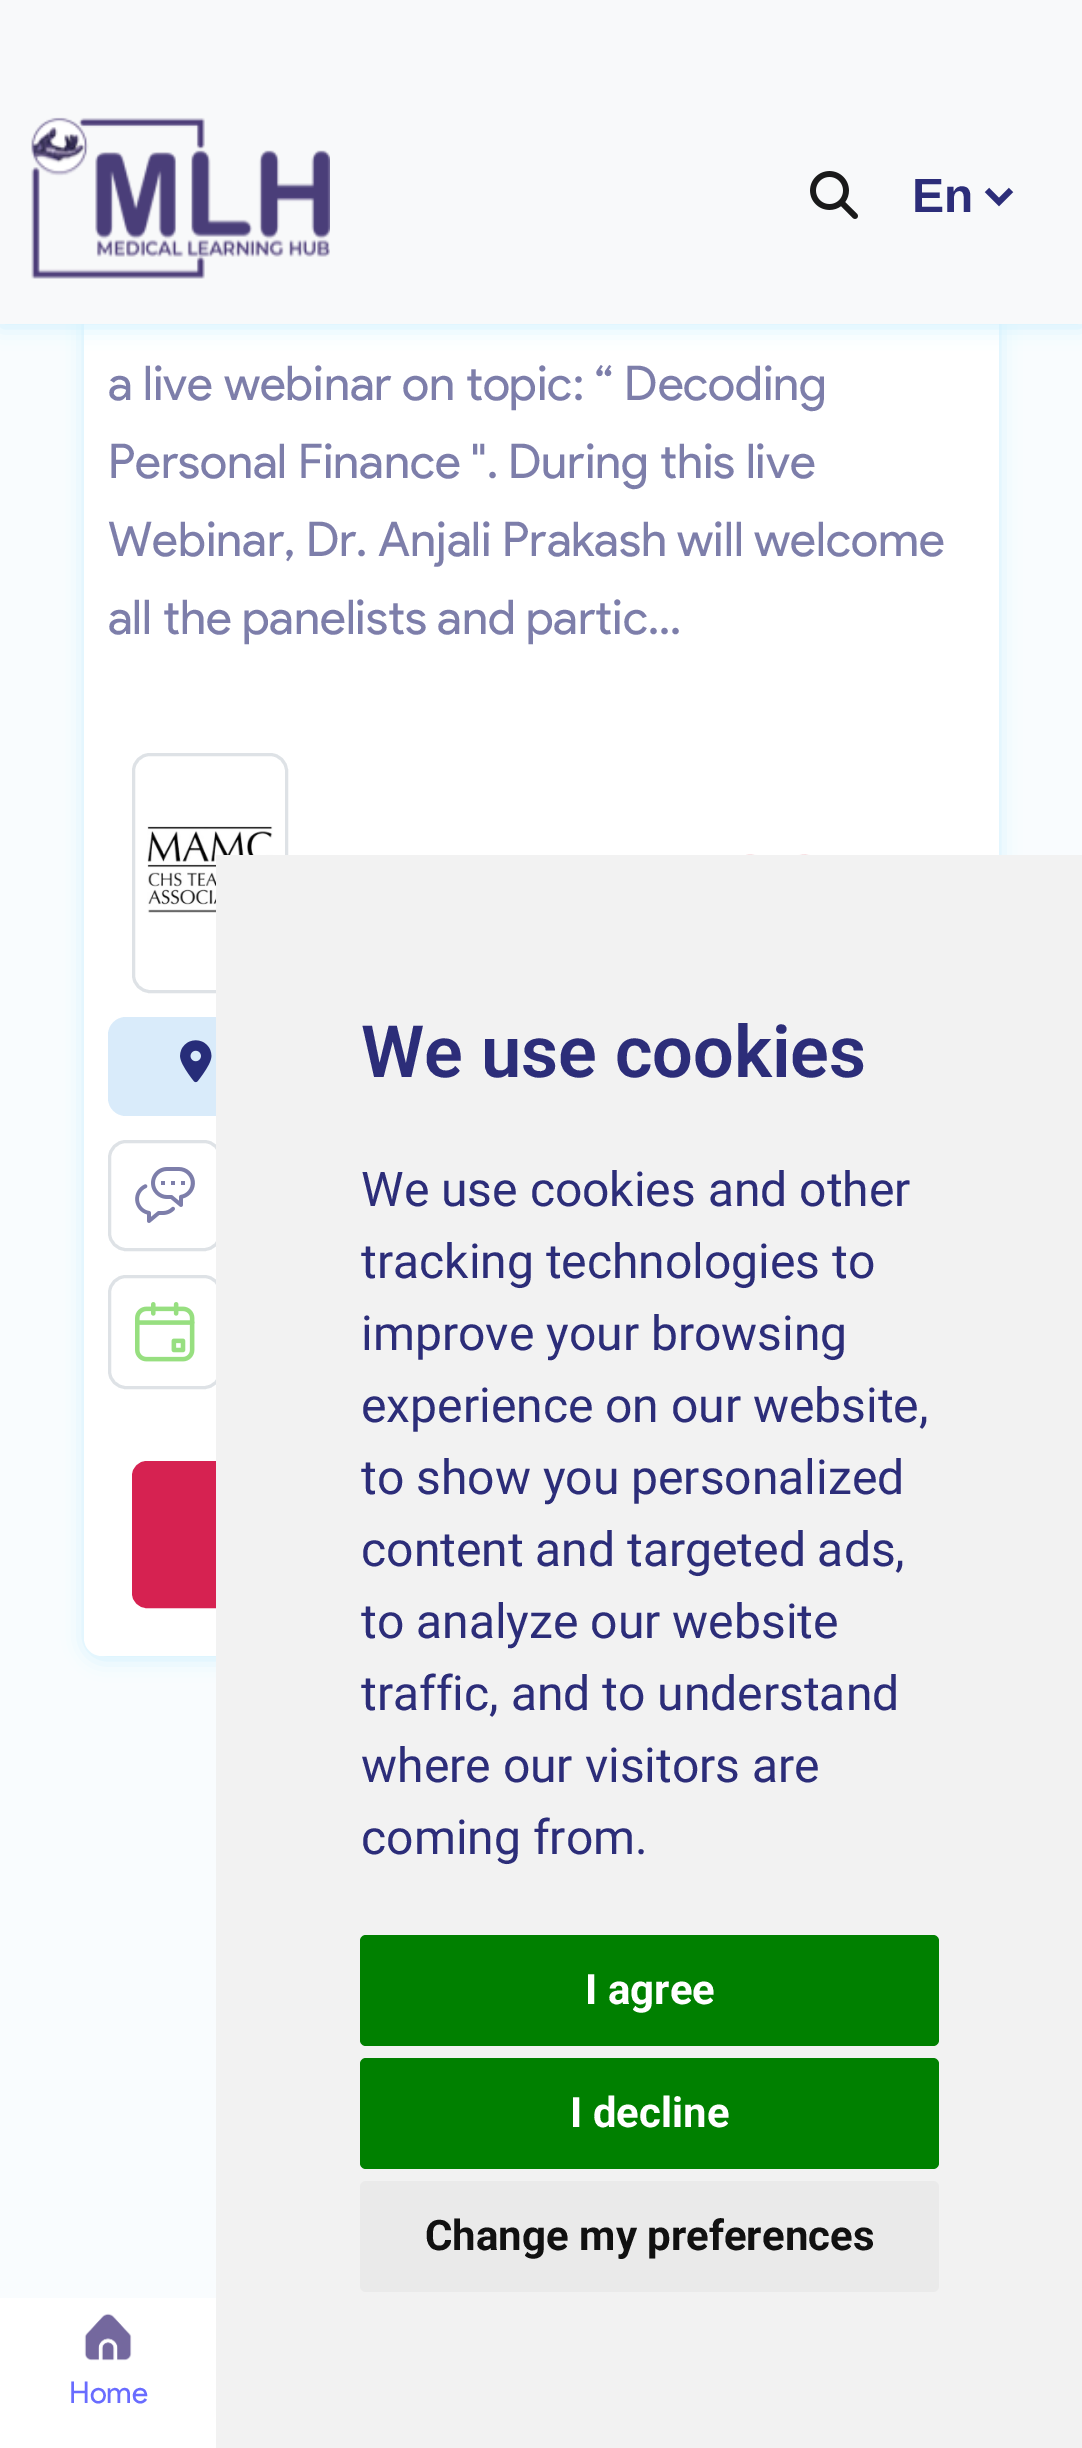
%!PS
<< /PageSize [1082 2448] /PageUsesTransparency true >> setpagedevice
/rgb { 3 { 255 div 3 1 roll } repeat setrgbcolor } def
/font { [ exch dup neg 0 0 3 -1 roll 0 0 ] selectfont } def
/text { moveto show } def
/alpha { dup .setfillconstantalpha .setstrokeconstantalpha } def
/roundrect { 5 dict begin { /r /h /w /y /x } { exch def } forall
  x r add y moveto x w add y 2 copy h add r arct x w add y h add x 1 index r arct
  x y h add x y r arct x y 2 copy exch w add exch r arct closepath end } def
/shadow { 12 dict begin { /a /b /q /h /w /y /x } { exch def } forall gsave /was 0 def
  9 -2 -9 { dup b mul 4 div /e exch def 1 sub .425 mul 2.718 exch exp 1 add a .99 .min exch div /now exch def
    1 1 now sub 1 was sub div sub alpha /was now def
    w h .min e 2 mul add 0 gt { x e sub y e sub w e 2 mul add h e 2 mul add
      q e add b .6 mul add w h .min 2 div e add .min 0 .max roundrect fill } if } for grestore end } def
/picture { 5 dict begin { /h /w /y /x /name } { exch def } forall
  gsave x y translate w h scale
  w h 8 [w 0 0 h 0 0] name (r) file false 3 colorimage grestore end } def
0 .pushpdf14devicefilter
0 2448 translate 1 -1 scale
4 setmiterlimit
249 252 254 rgb
0 0 1082 2448 rectfill
206 240 255 rgb
84 165 915 1494 18 10.5 1 shadow
255 255 255 rgb
84 162 915 1494 18 roundrect fill
206 240 255 rgb
0 3 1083 324 0 10.5 1 shadow
248 249 250 rgb
0 0 1082 324 rectfill
(img_01.rgb) 31 117 299 162 picture
(img_02.rgb) 810 171 48 48 picture
44 45 121 rgb
6 setlinewidth
987 190 moveto 12 12 rlineto 12 -12 rlineto stroke
222 226 230 rgb
3 setlinewidth
133.5 754.5 153 237 16.5 roundrect stroke
(img_03.rgb) 147 826 126 87 picture
(img_04.rgb) 746 854 64 1 picture
217 235 250 rgb
108 1017 867 99 18 roundrect fill
(img_05.rgb) 180 1040 32 43 picture
222 226 230 rgb
109.5 1141.5 111 108 16.5 roundrect stroke
(img_06.rgb) 135 1167 60 56 picture
109.5 1276.5 111 111 16.5 roundrect stroke
(img_07.rgb) 135 1302 60 60 picture
214 34 81 rgb
135 1464 813 141 12 roundrect gsave fill grestore
6 setlinewidth
stroke
242 242 242 rgb
216 855 866 1593 rectfill
0 128 0 rgb
360 1935 579 111 6 roundrect fill
360 2058 579 111 6 roundrect fill
234 234 234 rgb
360 2181 579 111 6 roundrect fill
255 255 255 rgb
0 2298 216 150 rectfill
(img_08.rgb) 84 2313 48 48 picture
/LiberationSans-Bold 48 font
44 45 121 rgb
(En) 912 212 text
/ProductSans-Regular 48 font
125 126 170 rgb
(a live webinar on topic: “ Decoding) 108 400 text
(Personal Finance ". During this live) 108 478 text
(Webinar, Dr. Anjali Prakash will welcome) 108 556 text
(all the panelists and partic...) 108 634 text
/Roboto-SemiBold 72 font
44 45 121 rgb
(We use cookies) 361 1077 text
/Roboto-Regular 48 font
(We use cookies and other) 361 1206 text
(tracking technologies to) 361 1278 text
(improve your browsing) 361 1350 text
(experience on our website,) 361 1422 text
(to show you personalized) 361 1494 text
(content and targeted ads,) 361 1566 text
(to analyze our website) 361 1638 text
(traffic, and to understand) 361 1710 text
(where our visitors are) 361 1782 text
(coming from.) 361 1854 text
/Roboto-Bold 42 font
255 255 255 rgb
(I agree) 585 2004 text
(I decline) 570 2127 text
17 17 17 rgb
(Change my preferences) 425 2250 text
/ProductSans-Regular 30 font
105 108 255 rgb
(Home) 69 2403 text
.poppdf14devicefilter showpage
